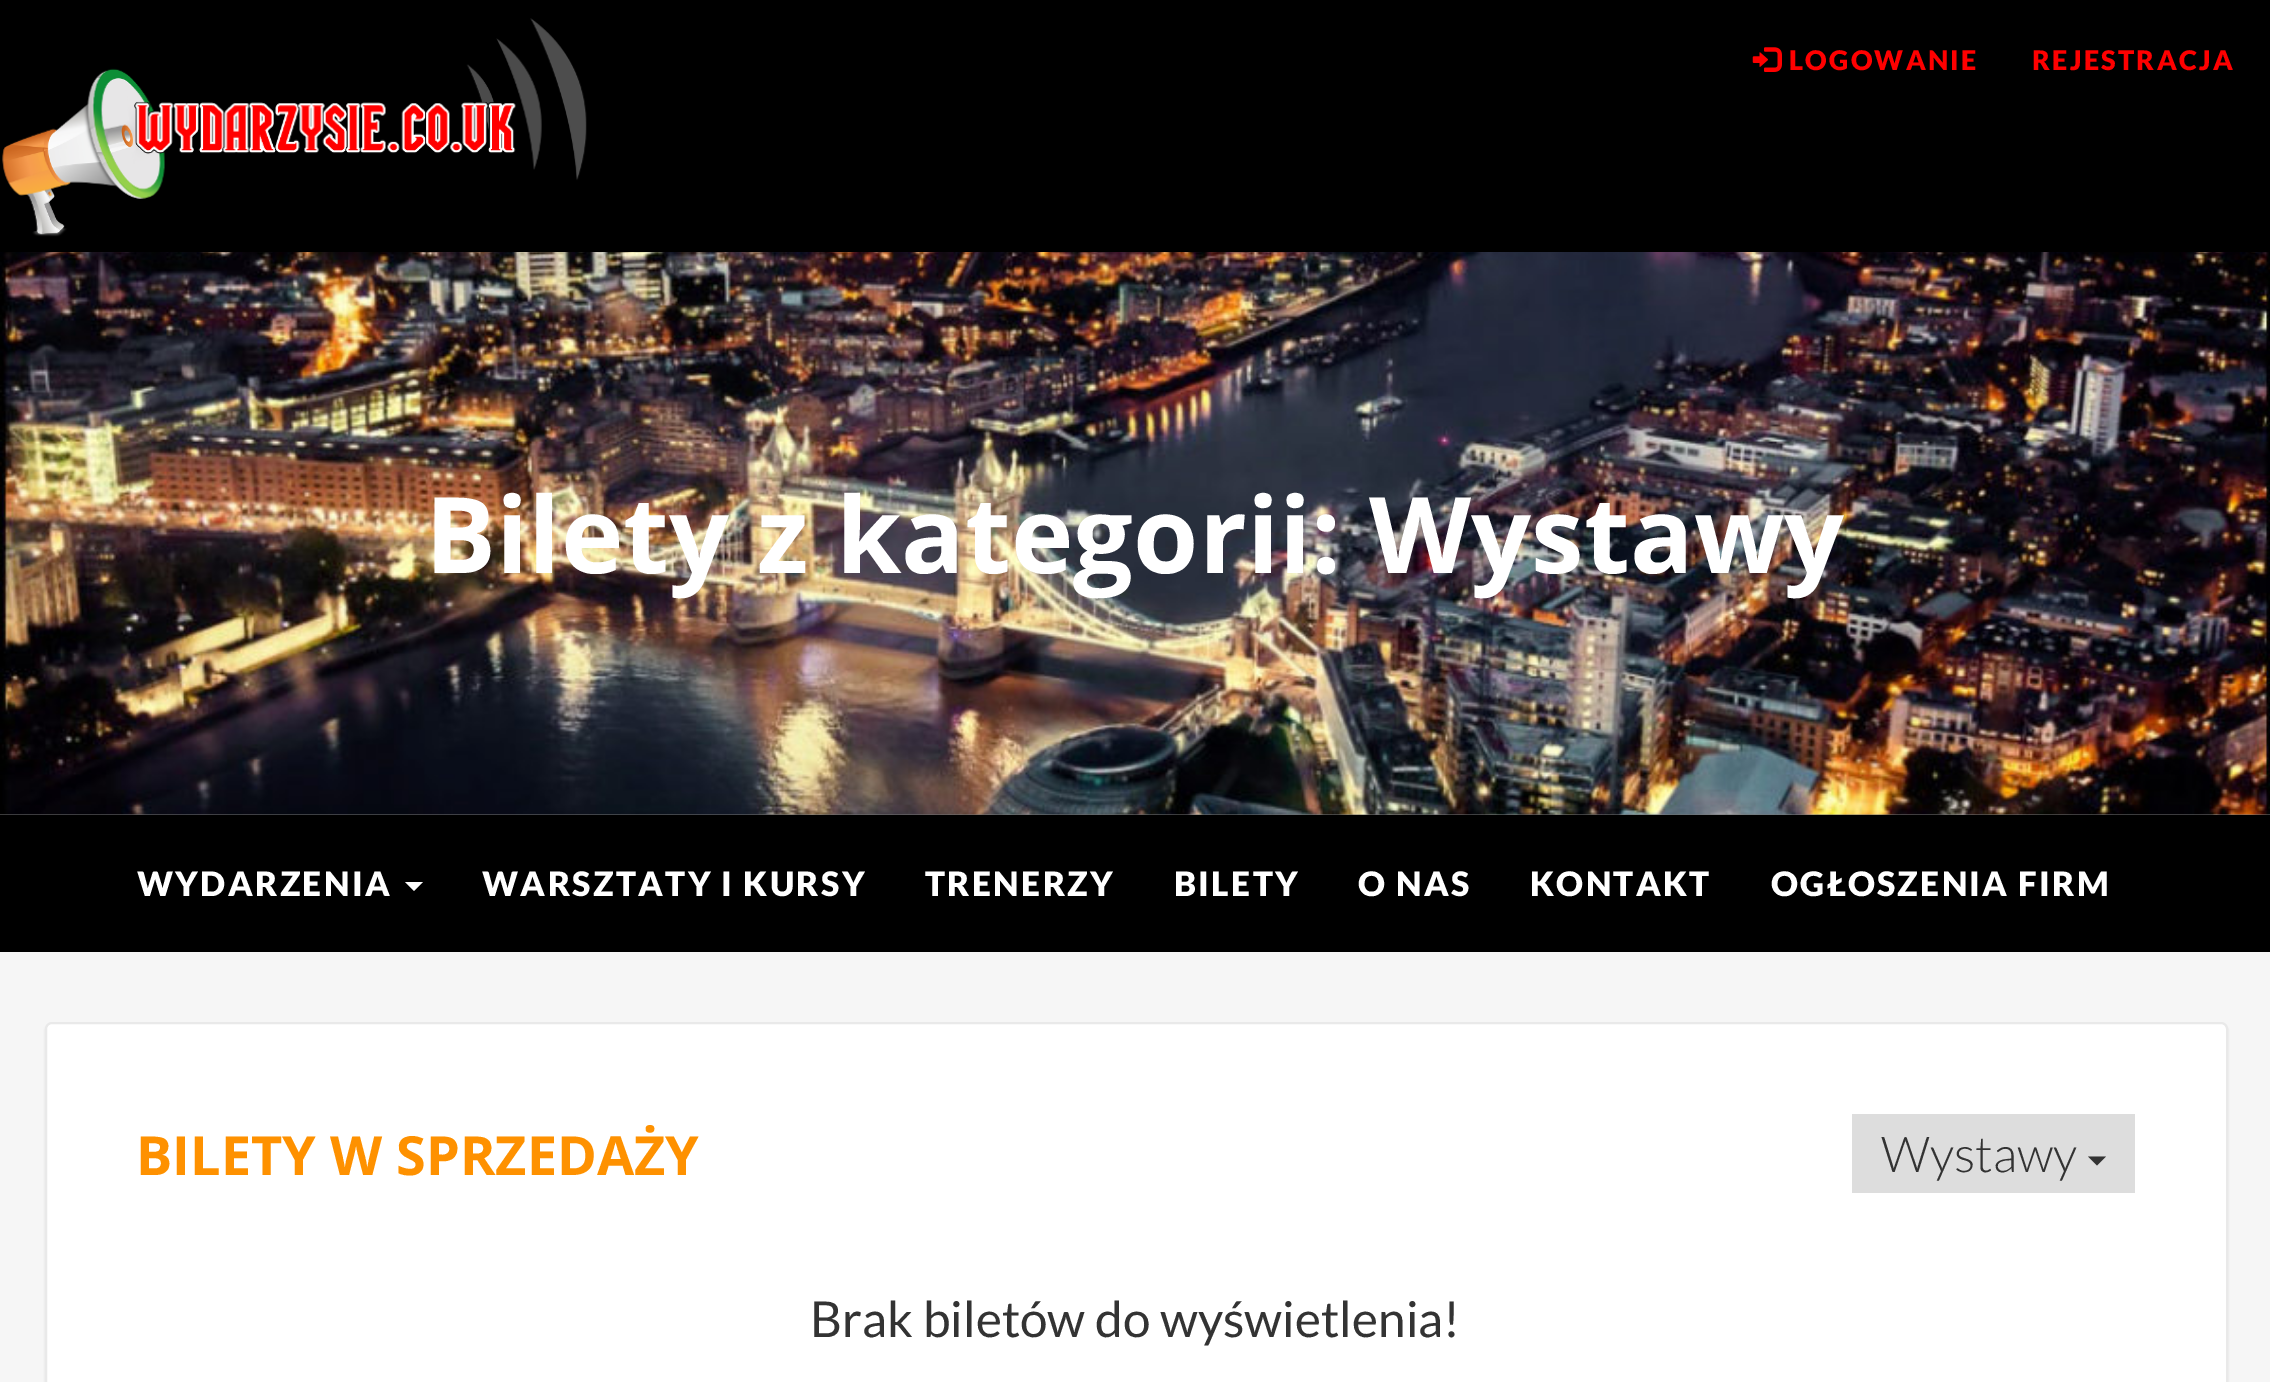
%!PS
<< /PageSize [2270 1382] /PageUsesTransparency true >> setpagedevice
/rgb { 3 { 255 div 3 1 roll } repeat setrgbcolor } def
/font { [ exch dup neg 0 0 3 -1 roll 0 0 ] selectfont } def
/text { moveto show } def
/alpha { dup .setfillconstantalpha .setstrokeconstantalpha } def
/roundrect { 5 dict begin { /r /h /w /y /x } { exch def } forall
  x r add y moveto x w add y 2 copy h add r arct x w add y h add x 1 index r arct
  x y h add x y r arct x y 2 copy exch w add exch r arct closepath end } def
/shadow { 12 dict begin { /a /b /q /h /w /y /x } { exch def } forall gsave /was 0 def
  9 -2 -9 { dup b mul 4 div /e exch def 1 sub .425 mul 2.718 exch exp 1 add a .99 .min exch div /now exch def
    1 1 now sub 1 was sub div sub alpha /was now def
    w h .min e 2 mul add 0 gt { x e sub y e sub w e 2 mul add h e 2 mul add
      q e add b .6 mul add w h .min 2 div e add .min 0 .max roundrect fill } if } for grestore end } def
/picture { 5 dict begin { /h /w /y /x /name } { exch def } forall
  gsave x y translate w h scale
  w h 8 [w 0 0 h 0 0] name (r) file false 3 colorimage grestore end } def
0 .pushpdf14devicefilter
0 1382 translate 1 -1 scale
4 setmiterlimit
246 246 246 rgb
0 0 2270 1382 rectfill
0 0 0 rgb
0 0 2270 252 rectfill
(img_01.rgb) 2 18 585 219 picture
(img_02.rgb) 1752 47 30 25 picture
119 119 119 rgb
0 814 2270 1 rectfill
(img_03.rgb) 0 252 2270 563 picture
0 0 0 rgb
0 815 2270 137 rectfill
255 255 255 rgb
405 882 moveto 18 0 rlineto -9 9 rlineto closepath fill
0 0 0 rgb
45 1024 2183 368 7 1 0.1 shadow
255 255 255 rgb
46 1023 2181 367 6 roundrect gsave fill grestore
233 233 233 rgb
2 setlinewidth
stroke
221 221 221 rgb
1852 1114 283 79 rectfill
51 51 51 rgb
2088 1156.5 moveto 18 0 rlineto -9 9 rlineto closepath fill
/Lato-Black 27 font
255 0 0 rgb
1789 70 moveto 2.25 0 (LOGOWANIE) ashow
2032 70 moveto 2.25 0 (REJESTRACJA) ashow
/OpenSans-Bold 105.75 font
255 255 255 rgb
(Bilety z kategorii: Wystawy) 425 573 text
/Lato-Black 33.75 font
137 896 moveto 2.25 0 (WYDARZENIA) ashow
482 896 moveto 2.25 0 (WARSZTATY I KURSY) ashow
925 896 moveto 2.25 0 (TRENERZY) ashow
1174 896 moveto 2.25 0 (BILETY) ashow
1358 896 moveto 2.25 0 (O NAS) ashow
1530 896 moveto 2.25 0 (KONTAKT) ashow
1771 896 moveto 2.25 0 (OGŁOSZENIA FIRM) ashow
/OpenSans-Bold 54 font
254 145 0 rgb
(BILETY W SPRZEDAŻY) 136 1175 text
/Lato-Light 49.5 font
51 51 51 rgb
(Wystawy) 1881 1172 text
/Lato-Regular 49.5 font
(Brak biletów do wyświetlenia!) 810 1337 text
.poppdf14devicefilter showpage
